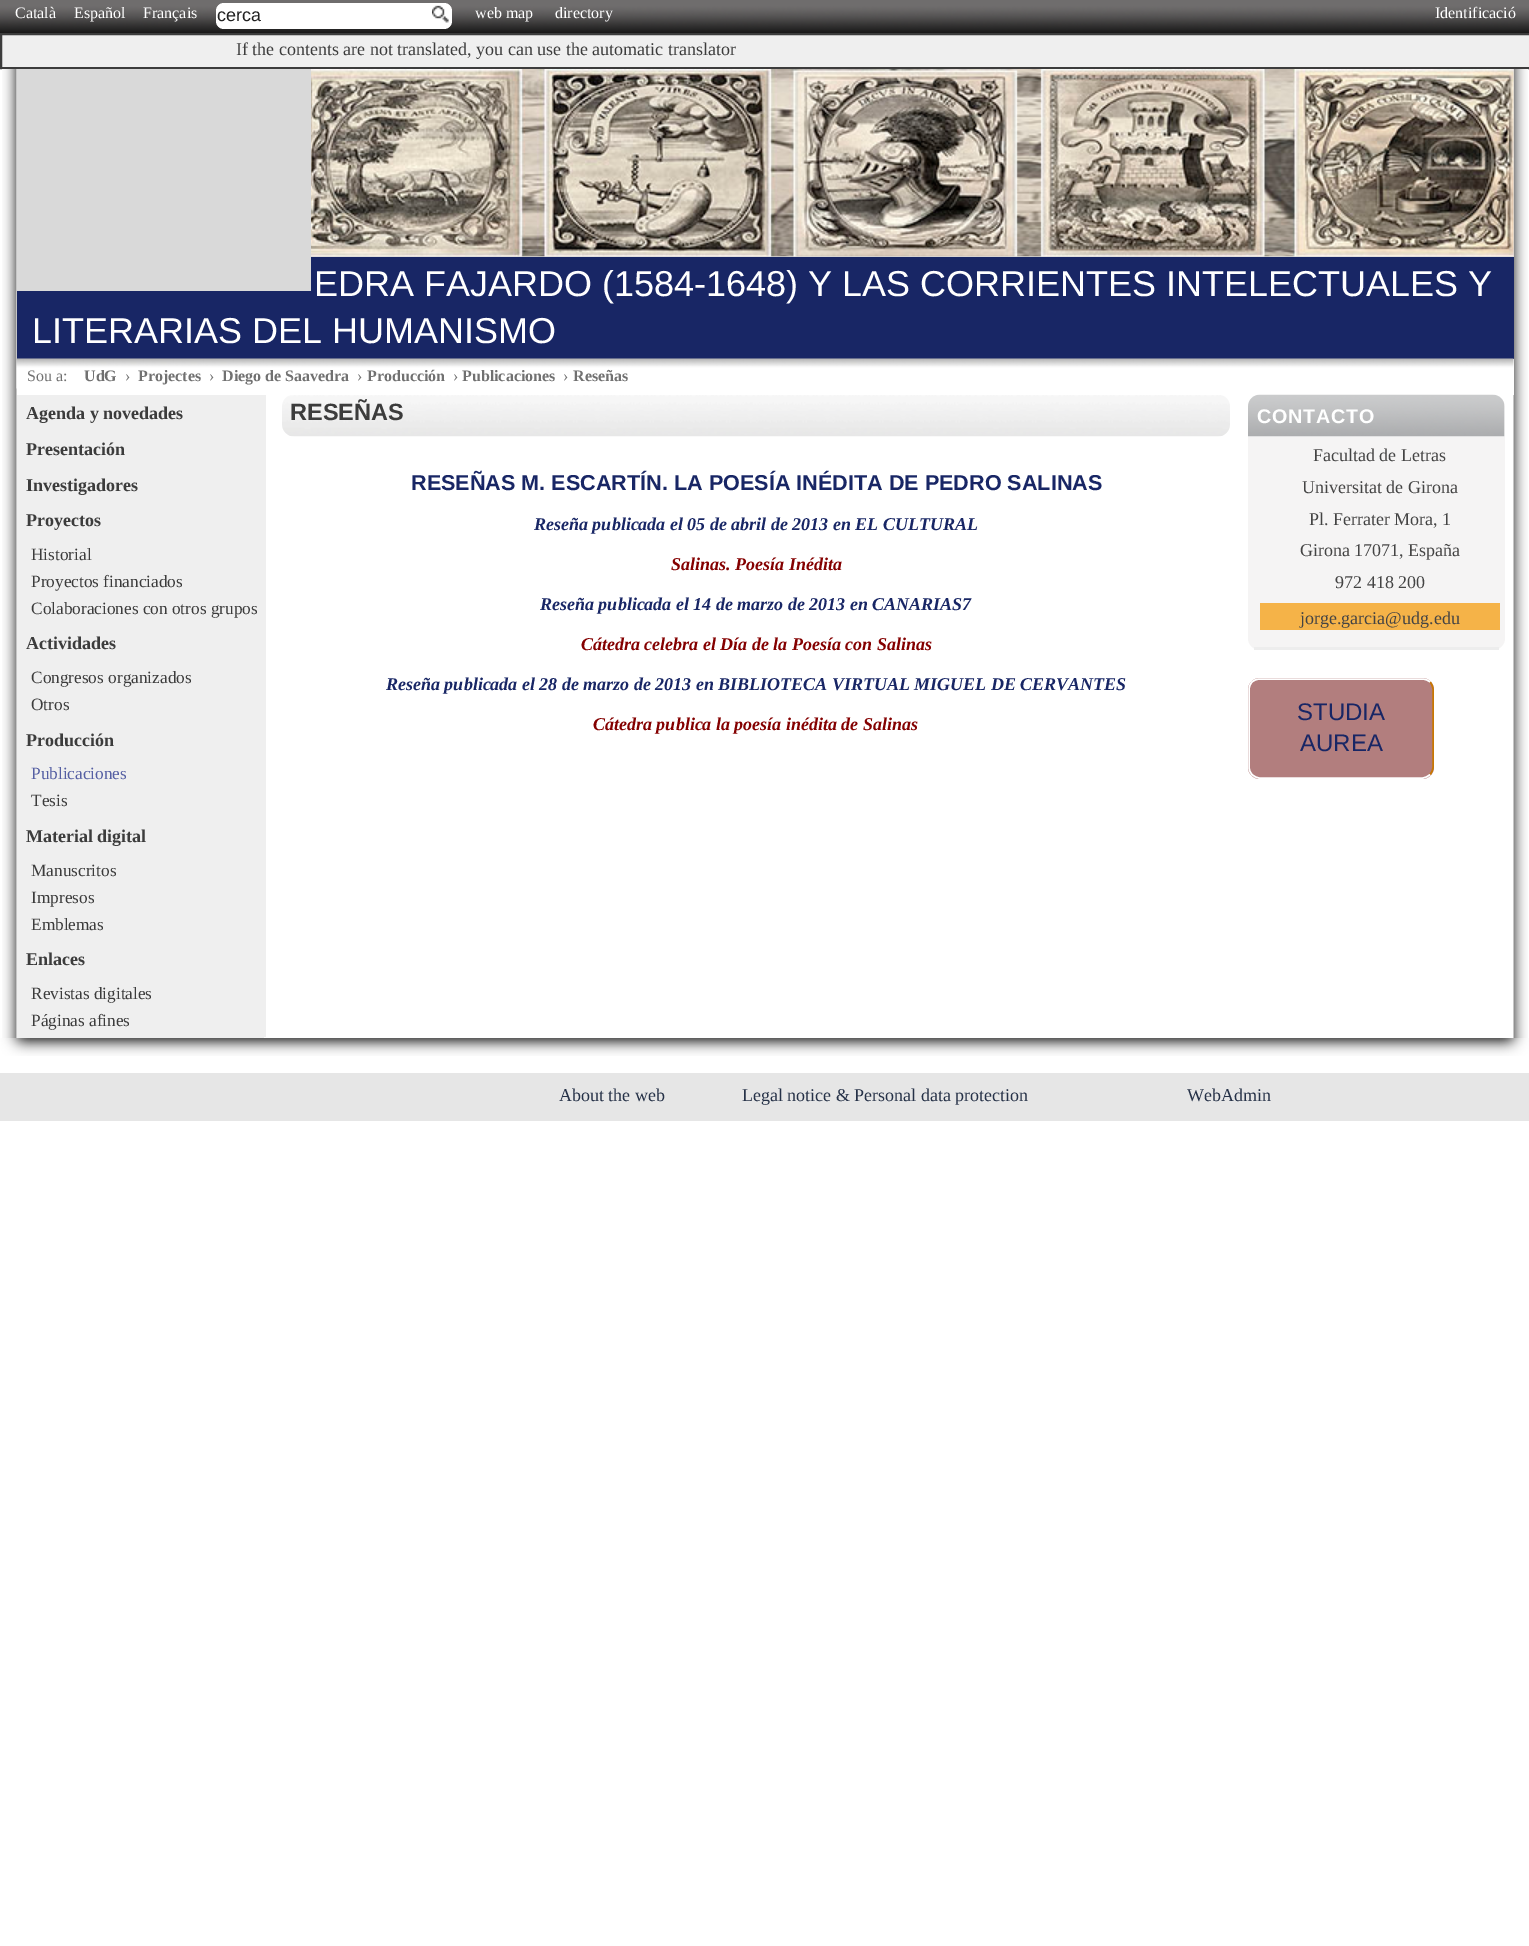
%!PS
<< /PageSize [1529 1946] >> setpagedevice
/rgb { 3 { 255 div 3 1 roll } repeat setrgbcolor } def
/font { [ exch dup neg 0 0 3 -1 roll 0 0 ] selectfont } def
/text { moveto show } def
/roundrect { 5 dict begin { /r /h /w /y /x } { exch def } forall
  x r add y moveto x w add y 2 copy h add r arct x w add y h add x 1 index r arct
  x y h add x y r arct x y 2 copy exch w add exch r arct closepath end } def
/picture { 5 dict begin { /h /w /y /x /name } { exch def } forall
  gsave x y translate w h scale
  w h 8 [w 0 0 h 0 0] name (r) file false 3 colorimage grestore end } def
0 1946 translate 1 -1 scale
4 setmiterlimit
255 255 255 rgb
0 0 1529 1946 rectfill
(img_01.rgb) 0 0 1529 33 picture
216 3 236 26 8 roundrect fill
(img_02.rgb) 432 5 17 18 picture
239 239 239 rgb
1 34 moveto 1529 0 rlineto 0 34 rlineto -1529 0 rlineto closepath gsave fill grestore
60 60 60 rgb
2 setlinewidth
stroke
(img_03.rgb) 30 1038 1470 18 picture
(img_04.rgb) 0 1038 30 18 picture
(img_05.rgb) 1500 1038 29 18 picture
(img_06.rgb) 2 69 15 969 picture
(img_07.rgb) 1513 69 15 969 picture
24 38 101 rgb
17 257 1497 102 rectfill
217 217 217 rgb
17 69 294 222 rectfill
311 69 1203 188 rectfill
(img_08.rgb) 311 69 1203 188 picture
255 255 255 rgb
1513 359 1 36 rectfill
(img_09.rgb) 16 358 1498 31 picture
239 239 239 rgb
17 395 247 643 rectfill
264 395 2 642 rectfill
(img_10.rgb) 282 395 948 42 picture
245 244 244 rgb
1248 395 257 255 12 roundrect fill
237 237 237 rgb
1254 647 245 3 rectfill
(img_11.rgb) 1248 394 257 43 picture
245 179 72 rgb
1260 603 240 27 rectfill
178 126 126 rgb
1248 678 186 101 12 roundrect fill
201 120 2 rgb
1.5 setlinewidth
1430 682 moveto 2 2 3 5 3 8 rcurveto 0 76.5 rlineto 0 3 -1 6 -3 8 rcurveto stroke
255 255 255 rgb
1430 774.5 moveto -2 2 -5 3.5 -8 3.5 rcurveto -162 0 rlineto -3 0 -6 -1.5 -8 -3.5 rcurveto -2 -2 -3 -5 -3 -8 rcurveto 0 -76.5 rlineto 0 -3 1 -6 3 -8 rcurveto 2 -2 5 -3 8 -3 rcurveto 162 0 rlineto 3 0 6 1 8 3 rcurveto stroke
230 230 230 rgb
0 1073 1529 48 rectfill
/LiberationSerif-Regular 16 font
255 255 255 rgb
(Català) 15 18 text
(Español) 74 18 text
(Français) 143 18 text
/LiberationSans-Regular 18 font
34 34 34 rgb
(cerca) 217 21 text
/LiberationSerif-Regular 16 font
255 255 255 rgb
(web map) 475 18 text
(directory) 555 18 text
(Identificació) 1435 18 text
/LiberationSerif-Regular 18 font
60 60 60 rgb
(If the contents are not translated, you can use the automatic translator) 236 55 text
/LiberationSans-Regular 36 font
255 255 255 rgb
(EDRA FAJARDO \(1584-1648\) Y LAS CORRIENTES INTELECTUALES Y) 314 296 text
(LITERARIAS DEL HUMANISMO) 32 343 text
/LiberationSerif-Regular 16 font
113 113 113 rgb
(Sou a:) 27 381 text
/LiberationSerif-Bold 16 font
(UdG) 84 381 text
/LiberationSerif-Regular 16 font
(›) 125 381 text
/LiberationSerif-Bold 16 font
(Projectes) 138 381 text
/LiberationSerif-Regular 16 font
(›) 209 381 text
/LiberationSerif-Bold 16 font
(Diego de Saavedra) 222 381 text
/LiberationSerif-Regular 16 font
(›) 357 381 text
/LiberationSerif-Bold 16 font
(Producción) 367 381 text
/LiberationSerif-Regular 16 font
(›) 453 381 text
/LiberationSerif-Bold 16 font
(Publicaciones) 462 381 text
/LiberationSerif-Regular 16 font
(›) 563 381 text
/LiberationSerif-Bold 16 font
(Reseñas) 573 381 text
/LiberationSerif-Bold 18 font
60 60 60 rgb
(Agenda y novedades) 26 419 text
(Presentación) 26 455 text
(Investigadores) 26 491 text
(Proyectos) 26 526 text
/LiberationSerif-Regular 17.25 font
(Historial) 31 560 text
(Proyectos financiados) 31 587 text
(Colaboraciones con otros grupos) 31 614 text
/LiberationSerif-Bold 18 font
(Actividades) 26 649 text
/LiberationSerif-Regular 17.25 font
(Congresos organizados) 31 683 text
(Otros) 31 710 text
/LiberationSerif-Bold 18 font
(Producción) 26 746 text
/LiberationSerif-Regular 17.25 font
85 95 163 rgb
(Publicaciones) 31 779 text
60 60 60 rgb
(Tesis) 31 806 text
/LiberationSerif-Bold 18 font
(Material digital) 26 842 text
/LiberationSerif-Regular 17.25 font
(Manuscritos) 31 876 text
(Impresos) 31 903 text
(Emblemas) 31 930 text
/LiberationSerif-Bold 18 font
(Enlaces) 26 965 text
/LiberationSerif-Regular 17.25 font
(Revistas digitales) 31 999 text
(Páginas afines) 31 1026 text
/LiberationSans-Bold 23.5 font
(RESEÑAS) 290 420 text
/LiberationSans-Bold 21.6 font
24 38 101 rgb
(RESEÑAS M. ESCARTÍN. LA POESÍA INÉDITA DE PEDRO SALINAS) 411 490 text
/LiberationSerif-BoldItalic 18 font
(Reseña publicada el 05 de abril de 2013 en EL CULTURAL) 534 530 text
132 0 0 rgb
(Salinas. Poesía Inédita) 671 570 text
24 38 101 rgb
(Reseña publicada el 14 de marzo de 2013 en CANARIAS7) 540 610 text
132 0 0 rgb
(Cátedra celebra el Día de la Poesía con Salinas) 581 650 text
24 38 101 rgb
(Reseña publicada el 28 de marzo de 2013 en BIBLIOTECA VIRTUAL MIGUEL DE CERVANTES) 386 690 text
132 0 0 rgb
(Cátedra publica la poesía inédita de Salinas) 593 730 text
/LiberationSans-Bold 19.75 font
255 255 255 rgb
1257 423 moveto 0.75 0 (CONTACTO) ashow
/LiberationSerif-Regular 18 font
68 68 68 rgb
(Facultad de Letras) 1313 461 text
(Universitat de Girona) 1302 493 text
(Pl. Ferrater Mora, 1) 1309 525 text
(Girona 17071, España) 1300 556 text
(972 418 200) 1335 588 text
(jorge.garcia@udg.edu) 1300 624 text
/LiberationSans-Regular 24 font
24 38 101 rgb
(STUDIA) 1297 720 text
(AUREA) 1300 751 text
/LiberationSerif-Regular 18 font
38 50 72 rgb
(About the web) 559 1101 text
(Legal notice & Personal data protection) 742 1101 text
(WebAdmin) 1187 1101 text
showpage
